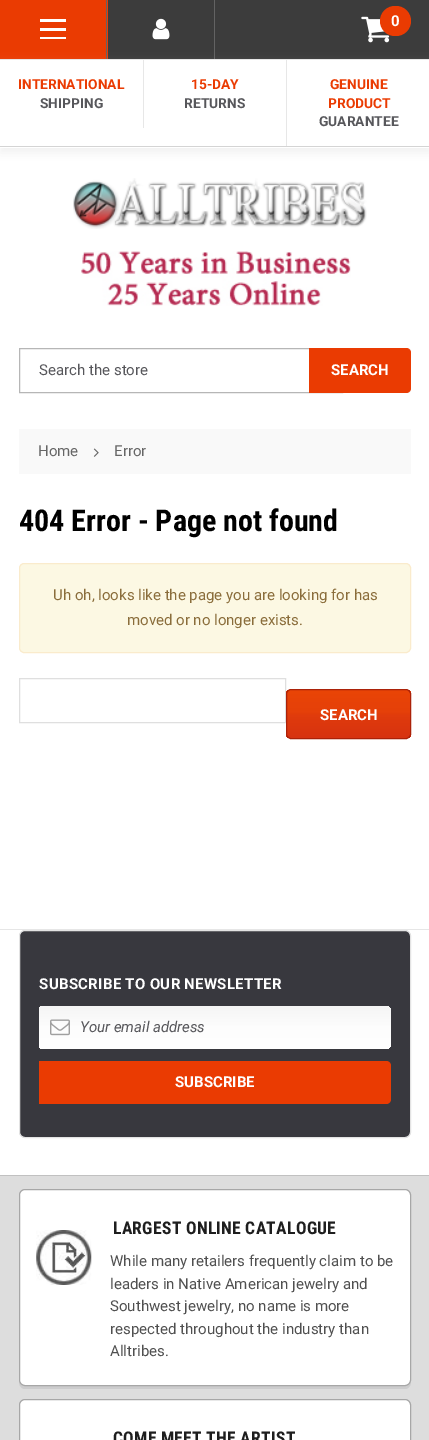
%!PS
<< /PageSize [429 1440] /PageUsesTransparency true >> setpagedevice
/rgb { 3 { 255 div 3 1 roll } repeat setrgbcolor } def
/font { [ exch dup neg 0 0 3 -1 roll 0 0 ] selectfont } def
/text { moveto show } def
/alpha { dup .setfillconstantalpha .setstrokeconstantalpha } def
/roundrect { 5 dict begin { /r /h /w /y /x } { exch def } forall
  x r add y moveto x w add y 2 copy h add r arct x w add y h add x 1 index r arct
  x y h add x y r arct x y 2 copy exch w add exch r arct closepath end } def
/shadow { 12 dict begin { /a /b /q /h /w /y /x } { exch def } forall gsave /was 0 def
  9 -2 -9 { dup b mul 4 div /e exch def 1 sub .425 mul 2.718 exch exp 1 add a .99 .min exch div /now exch def
    1 1 now sub 1 was sub div sub alpha /was now def
    w h .min e 2 mul add 0 gt { x e sub y e sub w e 2 mul add h e 2 mul add
      q e add b .6 mul add w h .min 2 div e add .min 0 .max roundrect fill } if } for grestore end } def
/picture { 5 dict begin { /h /w /y /x /name } { exch def } forall
  gsave x y translate w h scale
  w h 8 [w 0 0 h 0 0] name (r) file false 3 colorimage grestore end } def
0 .pushpdf14devicefilter
0 1440 translate 1 -1 scale
4 setmiterlimit
255 255 255 rgb
0 0 429 1440 rectfill
60 60 60 rgb
108 0 321 59 rectfill
234 59 2 rgb
0 0 108 59 rectfill
99 99 99 rgb
106 0 1 59 rectfill
255 255 255 rgb
40 19 26 3 rectfill
40 37 26 2 rectfill
40 28 26 3 rectfill
99 99 99 rgb
214 0 1 59 rectfill
(img_01.rgb) 152 18 18 22 picture
(img_02.rgb) 361 16 29 27 picture
234 59 2 rgb
380 6 31 30 15 roundrect fill
204 204 204 rgb
0 64 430 89 0 5 0.3 shadow
255 255 255 rgb
0 60 429 88 rectfill
231 231 231 rgb
0 59 429 1 rectfill
212 212 212 rgb
0 146 429 1 rectfill
231 231 231 rgb
143 60 1 68 rectfill
286 60 1 86 rectfill
(img_03.rgb) 73 178 294 51 picture
(img_04.rgb) 81 251 270 55 picture
238 238 238 rgb
19 348 392 45 4 roundrect fill
255 255 255 rgb
20 349 289 43 rectfill
182 182 182 rgb
19.5 348.5 323 44 rectstroke
234 59 2 rgb
309 348 moveto 97 0 rlineto 3 0 5 2 5 5 rcurveto 0 35 rlineto 0 3 -2 5 -5 5 rcurveto -97 0 rlineto closepath fill
249 249 249 rgb
19 429 392 45 rectfill
(img_05.rgb) 93 448 6 9 picture
252 248 227 rgb
19.5 563.5 391 89 4.5 roundrect gsave fill grestore
250 235 204 rgb
stroke
223 223 223 rgb
19.5 678.5 266 44 rectstroke
gsave
286 689 125 50 5 roundrect clip newpath
gsave 286 690 moveto 125 0 rlineto 0 48 rlineto -125 0 rlineto closepath clip newpath
<< /ShadingType 2 /ColorSpace /DeviceRGB /Coords [349 690 349 738] /Extend [true true] /Function << /FunctionType 3 /Domain [0 1] /Functions [<< /FunctionType 2 /Domain [0 1] /C0 [0.918 0.271 0.024] /C1 [0.898 0.251 0.035] /N 1 >> << /FunctionType 2 /Domain [0 1] /C0 [0.898 0.251 0.035] /C1 [0.878 0.231 0.047] /N 1 >> << /FunctionType 2 /Domain [0 1] /C0 [0.878 0.231 0.047] /C1 [0.843 0.2 0.067] /N 1 >>] /Bounds [0.46 0.54] /Encode [0 1 0 1 0 1] >> >> shfill grestore
grestore
171 34 9 rgb
286.5 689.5 124 49 4.5 roundrect stroke
230 230 230 rgb
0 929 429 1 rectfill
56 56 62 rgb
19.5 930.5 391 207 5.5 roundrect gsave fill grestore
227 227 227 rgb
stroke
gsave 44 1006 moveto 341 0 rlineto 3.5 0 6 2.5 6 6 rcurveto 0 31 rlineto 0 3.5 -2.5 6 -6 6 rcurveto -341 0 rlineto -3 0 -5 -2 -5 -5 rcurveto 0 -33 rlineto 0 -3 2 -5 5 -5 rcurveto closepath clip newpath
<< /ShadingType 2 /ColorSpace /DeviceRGB /Coords [215 1006 215 1049] /Extend [true true] /Function << /FunctionType 3 /Domain [0 1] /Functions [<< /FunctionType 2 /Domain [0 1] /C0 [0.961 0.961 0.961] /C1 [0.992 0.992 0.992] /N 1 >> << /FunctionType 2 /Domain [0 1] /C0 [0.992 0.992 0.992] /C1 [1 1 1] /N 1 >>] /Bounds [0.49] /Encode [0 1 0 1] >> >> shfill grestore
(img_06.rgb) 50 1019 20 17 picture
234 59 2 rgb
39 1061 moveto 347 0 rlineto 3 0 5 2 5 5 rcurveto 0 33 rlineto 0 3 -2 5 -5 5 rcurveto -347 0 rlineto closepath fill
221 221 221 rgb
0 1176 429 264 rectfill
193 193 193 rgb
0 1175 429 1 rectfill
204 204 205 rgb
19 1382 moveto 0 3 2 7 6 7 rcurveto 380 0 rlineto 4 0 6 -4 6 -7 rcurveto -1 2 -3 4 -6 4 rcurveto -380 0 rlineto -3 0 -5 -2 -6 -4 rcurveto closepath fill
255 255 255 rgb
19.5 1189.5 391 196 5.5 roundrect gsave fill grestore
167 167 167 rgb
stroke
(img_07.rgb) 36 1230 56 55 picture
255 255 255 rgb
19.5 1399.5 391 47 5.5 roundrect gsave fill grestore
167 167 167 rgb
stroke
/Roboto-Bold 15 font
255 255 255 rgb
(0) 391 26 text
/Roboto-Bold 13.75 font
234 59 2 rgb
(INTERNATIONAL) 18 89 text
87 87 91 rgb
(SHIPPING) 40 108 text
234 59 2 rgb
(15-DAY) 191 89 text
87 87 91 rgb
(RETURNS) 184 108 text
234 59 2 rgb
(GENUINE) 330 89 text
(PRODUCT) 328 108 text
87 87 91 rgb
(GUARANTEE) 319 126 text
/Roboto-Regular 15 font
(Search the store) 39 375 text
/Roboto-Bold 15 font
255 255 255 rgb
(SEARCH) 331 375 text
/Roboto-Regular 15 font
102 102 102 rgb
(Home) 38 456 text
(Error) 114 456 text
/RobotoCondensed-Bold 30 font
0 0 0 rgb
(404 Error - Page not found) 19 531 text
/Roboto-Regular 15 font
138 109 59 rgb
(Uh oh, looks like the page you are looking for has) 53 600 text
(moved or no longer exists.) 127 625 text
/Roboto-Bold 15 font
255 255 255 rgb
(SEARCH) 320 720 text
39 989 moveto 0.3 0 (SUBSCRIBE TO OUR NEWSLETTER) ashow
/Roboto-Italic 15 font
87 87 91 rgb
(Your email address) 80 1032 text
/Roboto-Bold 15 font
255 255 255 rgb
(SUBSCRIBE) 175 1087 text
/RobotoCondensed-Bold 17.5 font
30 30 30 rgb
113 1234 moveto 0.3 0 (LARGEST ONLINE CATALOGUE) ashow
/Roboto-Regular 15 font
80 80 80 rgb
(While many retailers frequently claim to be) 110 1266 text
(leaders in Native American jewelry and) 110 1289 text
(Southwest jewelry, no name is more) 110 1311 text
(respected throughout the industry than) 110 1334 text
(Alltribes.) 110 1356 text
/RobotoCondensed-Bold 17.5 font
30 30 30 rgb
113 1444 moveto 0.3 0 (COME MEET THE ARTIST) ashow
.poppdf14devicefilter showpage
